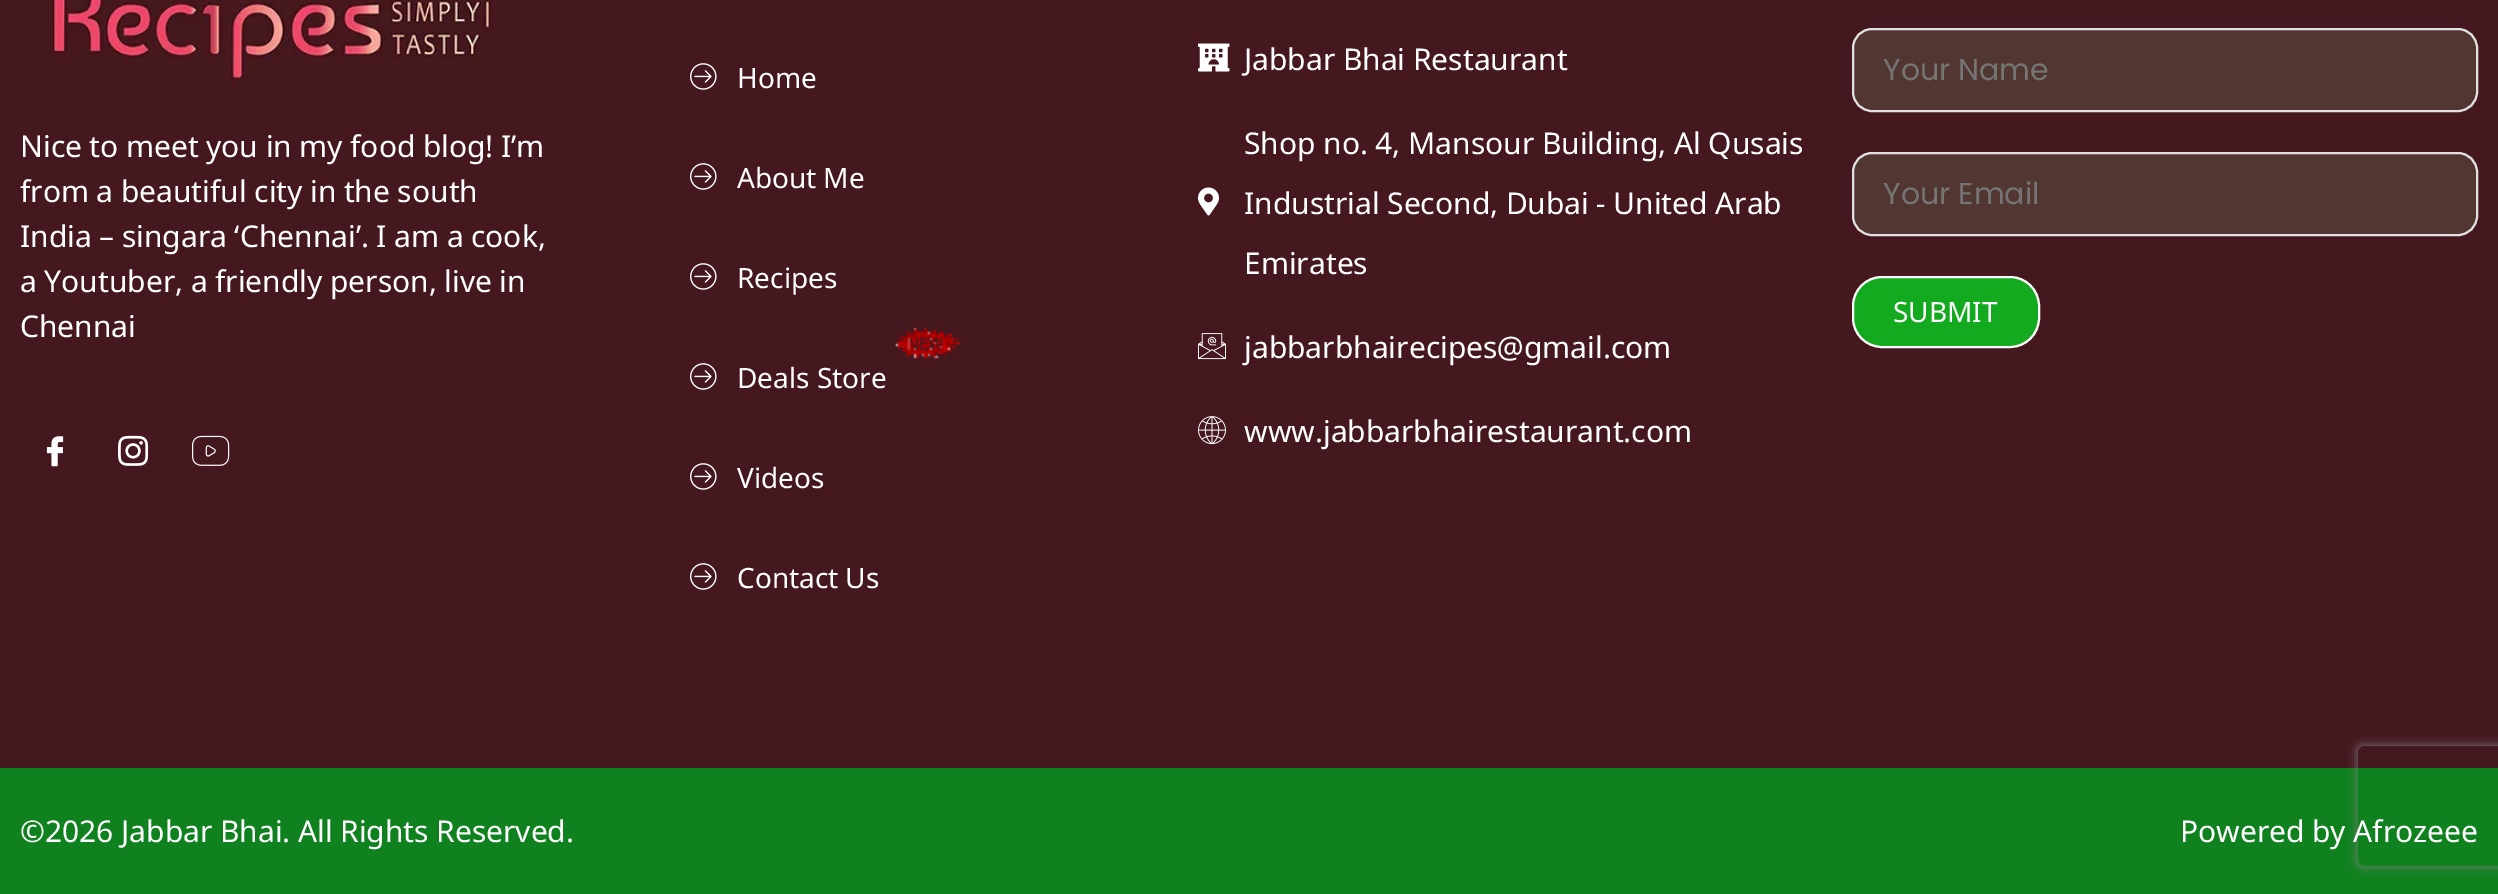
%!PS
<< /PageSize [2498 894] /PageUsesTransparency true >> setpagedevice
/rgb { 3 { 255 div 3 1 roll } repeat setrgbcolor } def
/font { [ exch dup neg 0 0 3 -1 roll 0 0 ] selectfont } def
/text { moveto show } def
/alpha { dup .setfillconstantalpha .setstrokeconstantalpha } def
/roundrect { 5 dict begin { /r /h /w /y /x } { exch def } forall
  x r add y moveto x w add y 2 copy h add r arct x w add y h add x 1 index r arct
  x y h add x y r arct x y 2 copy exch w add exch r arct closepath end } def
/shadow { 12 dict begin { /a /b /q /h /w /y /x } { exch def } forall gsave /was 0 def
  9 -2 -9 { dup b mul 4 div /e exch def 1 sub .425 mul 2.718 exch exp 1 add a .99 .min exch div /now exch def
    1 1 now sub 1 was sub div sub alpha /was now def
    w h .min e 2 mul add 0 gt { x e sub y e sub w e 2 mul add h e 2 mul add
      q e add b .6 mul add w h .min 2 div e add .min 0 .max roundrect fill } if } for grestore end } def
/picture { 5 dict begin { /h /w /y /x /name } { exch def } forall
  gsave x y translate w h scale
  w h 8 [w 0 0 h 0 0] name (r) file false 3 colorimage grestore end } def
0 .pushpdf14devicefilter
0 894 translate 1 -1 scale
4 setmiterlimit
69 24 31 rgb
0 0 2498 894 rectfill
(img_01.rgb) 49 0 447 84 picture
(img_02.rgb) 46 436 18 31 picture
(img_03.rgb) 118 435 31 31 picture
(img_04.rgb) 192 435 38 31 picture
(img_05.rgb) 690 63 27 27 picture
(img_05.rgb) 690 163 27 27 picture
(img_05.rgb) 690 263 27 27 picture
(img_06.rgb) 895 328 66 31 picture
(img_05.rgb) 690 363 27 27 picture
(img_05.rgb) 690 463 27 27 picture
(img_05.rgb) 690 563 27 27 picture
(img_07.rgb) 1198 43 32 29 picture
(img_08.rgb) 1198 187 21 29 picture
(img_09.rgb) 1198 333 28 27 picture
(img_10.rgb) 1198 416 28 29 picture
81 54 49 rgb
1853 29 624 82 19 roundrect gsave fill grestore
225 225 225 rgb
2 setlinewidth
stroke
81 54 49 rgb
1853 153 624 82 19 roundrect gsave fill grestore
225 225 225 rgb
stroke
19 170 32 rgb
1853 277 186 70 29 roundrect gsave fill grestore
255 255 255 rgb
stroke
15 129 30 rgb
0 768 2498 126 rectfill
gsave
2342 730 moveto 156 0 rlineto 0 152 rlineto -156 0 rlineto closepath 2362 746 moveto 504 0 rlineto 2 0 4 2 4 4 rcurveto 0 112 rlineto 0 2 -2 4 -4 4 rcurveto -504 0 rlineto -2 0 -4 -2 -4 -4 rcurveto 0 -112 rlineto 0 -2 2 -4 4 -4 rcurveto closepath eoclip newpath
128 128 128 rgb
2358 746 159 120 4 5 1 shadow
grestore
/NotoSansAdlam-Regular 30 font
255 255 255 rgb
(Nice to meet you in my food blog! I’m) 20 157 text
(from a beautiful city in the south) 20 202 text
(India – singara ‘Chennai’. I am a cook,) 20 247 text
(a Youtuber, a friendly person, live in) 20 292 text
(Chennai) 20 337 text
/NotoSansAdlam-Regular 28 font
(Home) 737 88 text
(About Me) 737 188 text
(Recipes) 737 288 text
(Deals Store) 737 388 text
(Videos) 737 488 text
(Contact Us) 737 588 text
/NotoSansAdlam-Regular 30 font
(Jabbar Bhai Restaurant) 1244 70 text
(Shop no. 4, Mansour Building, Al Qusais) 1244 154 text
(Industrial Second, Dubai - United Arab) 1244 214 text
(Emirates) 1244 274 text
(jabbarbhairecipes@gmail.com) 1244 358 text
(www.jabbarbhairestaurant.com) 1244 442 text
/Poppins-Regular 30 font
117 117 117 rgb
(Your Name) 1883 80 text
(Your Email) 1883 204 text
/NotoSansAdlam-Regular 28 font
255 255 255 rgb
(SUBMIT) 1893 322 text
/NotoSansAdlam-Regular 30 font
(©2026 Jabbar Bhai. All Rights Reserved.) 20 842 text
(Powered by Afrozeee) 2180 842 text
.poppdf14devicefilter showpage
